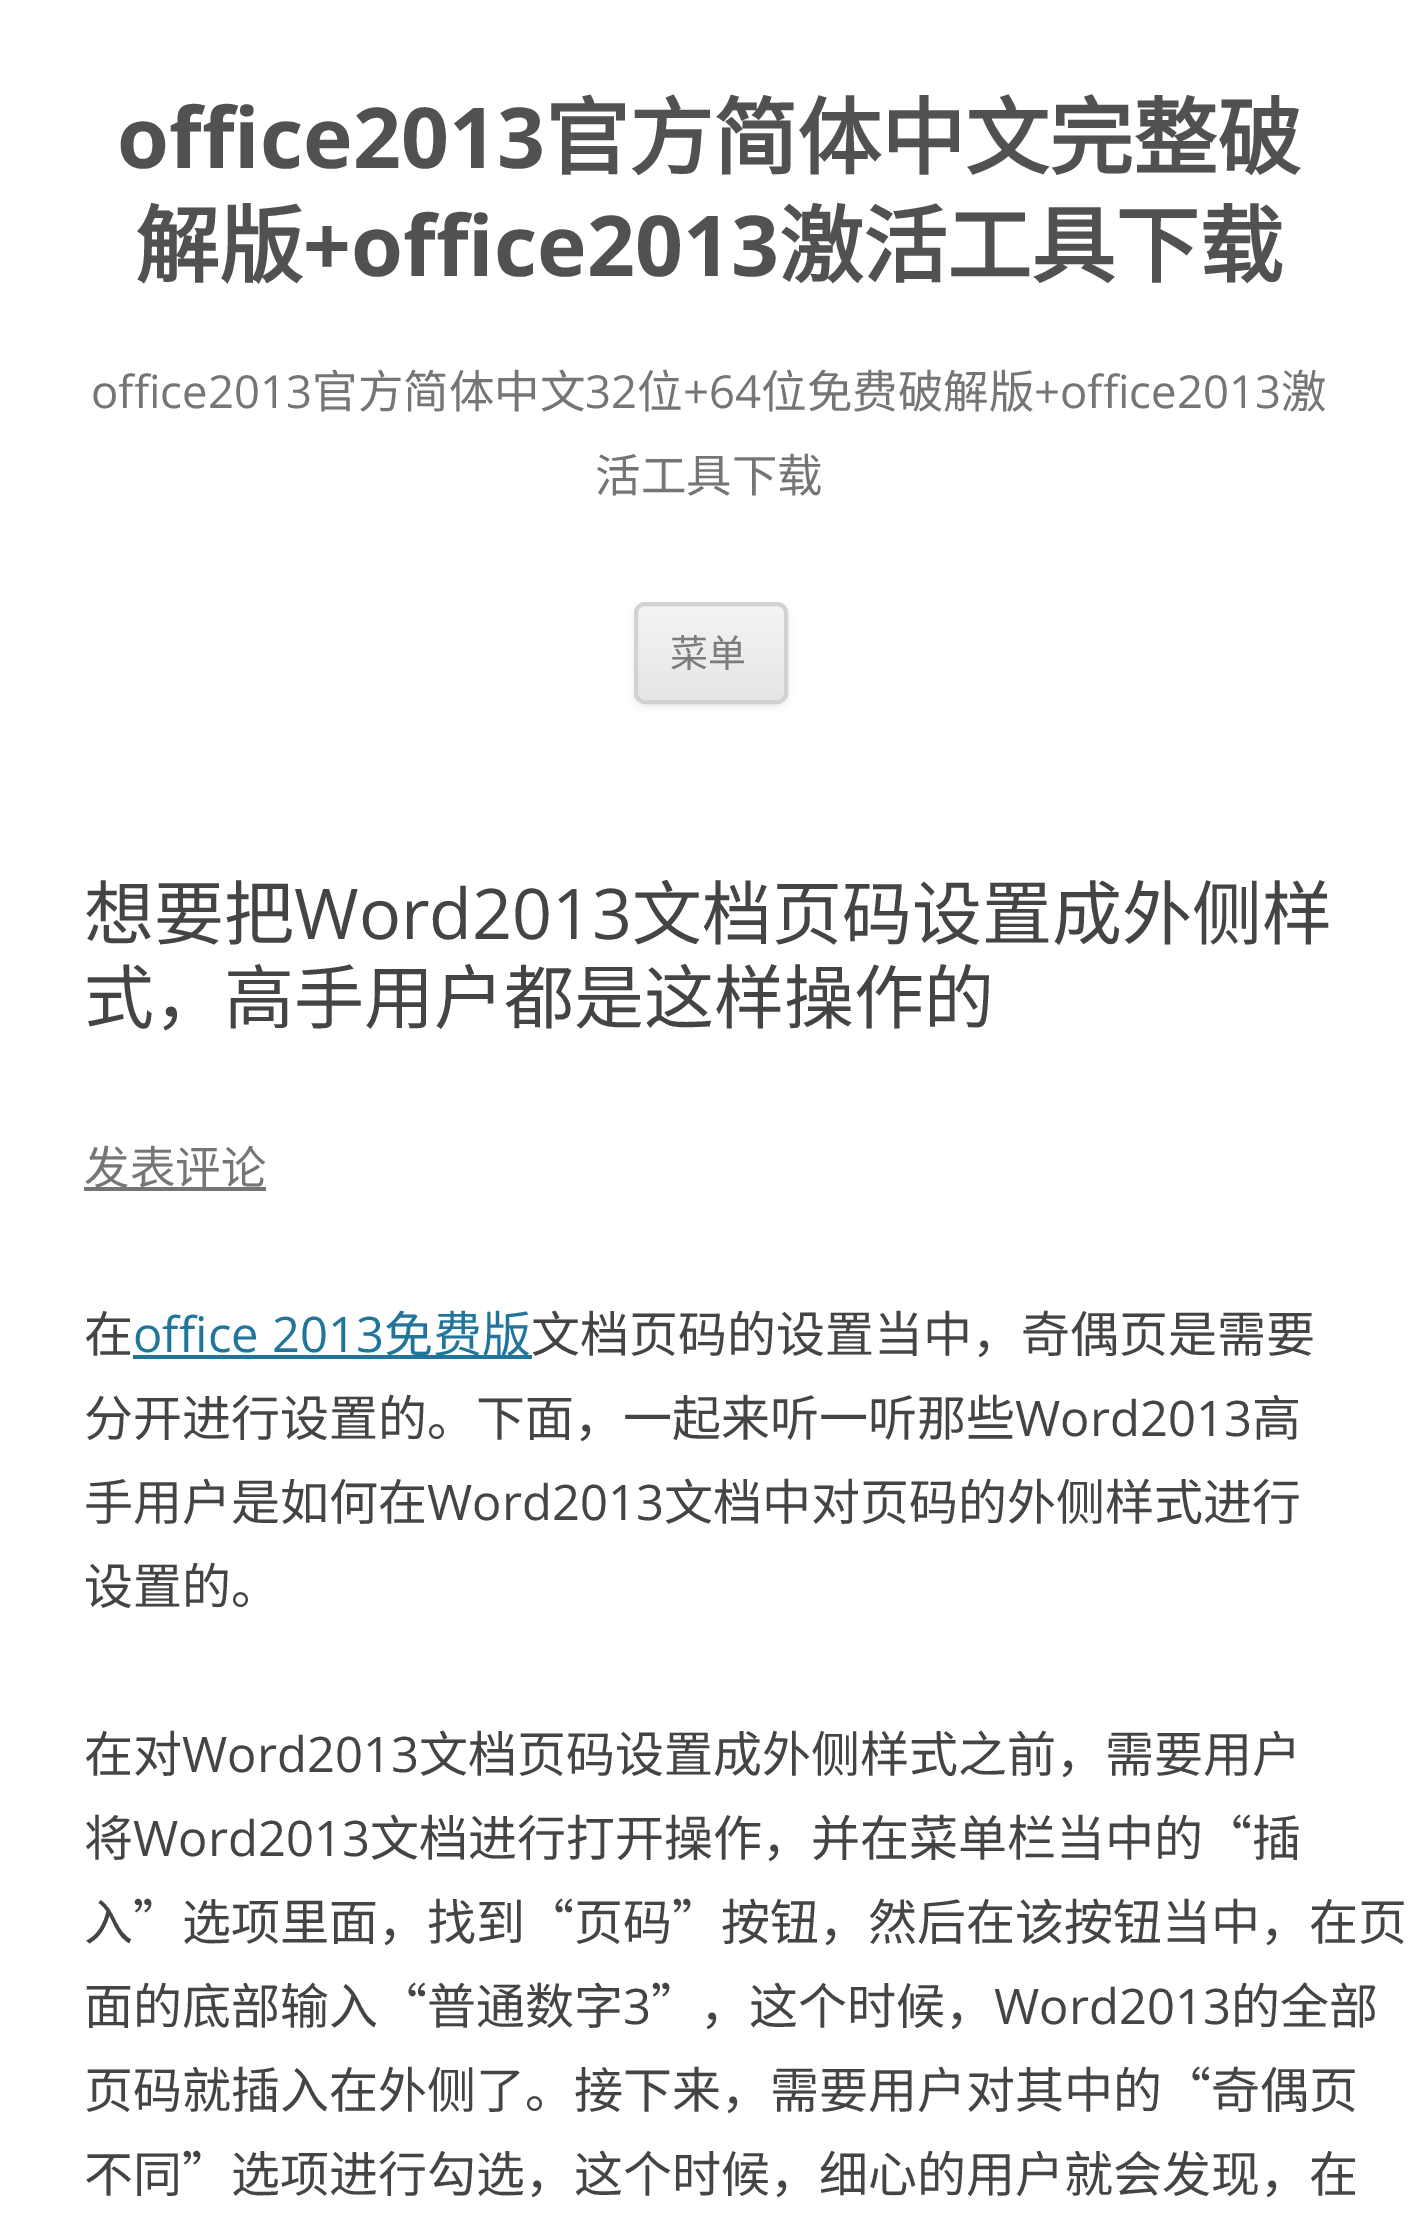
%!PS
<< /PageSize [1417 2226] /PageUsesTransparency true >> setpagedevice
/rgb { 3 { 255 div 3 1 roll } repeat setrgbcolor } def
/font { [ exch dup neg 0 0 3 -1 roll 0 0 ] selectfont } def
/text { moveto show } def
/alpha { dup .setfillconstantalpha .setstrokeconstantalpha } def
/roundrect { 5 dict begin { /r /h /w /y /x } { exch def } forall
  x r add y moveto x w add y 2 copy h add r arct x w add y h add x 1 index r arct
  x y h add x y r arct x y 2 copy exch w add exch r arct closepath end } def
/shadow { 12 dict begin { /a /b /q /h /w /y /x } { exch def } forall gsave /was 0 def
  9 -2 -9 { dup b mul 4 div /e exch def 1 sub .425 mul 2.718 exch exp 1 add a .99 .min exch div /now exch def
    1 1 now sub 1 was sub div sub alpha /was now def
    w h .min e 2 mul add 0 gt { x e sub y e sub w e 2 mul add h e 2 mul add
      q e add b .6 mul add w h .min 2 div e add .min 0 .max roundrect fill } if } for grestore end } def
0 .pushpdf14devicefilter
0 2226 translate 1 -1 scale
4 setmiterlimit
255 255 255 rgb
0 0 1417 2226 rectfill
64 64 64 rgb
634 606 154 101 11 3.5 0.1 shadow
gsave
634 602 154 102 11 roundrect clip newpath
gsave 634 606 moveto 154 0 rlineto 0 94 rlineto -154 0 rlineto closepath clip newpath
<< /ShadingType 2 /ColorSpace /DeviceRGB /Coords [711 606 711 700] /Extend [true true] /Function << /FunctionType 2 /Domain [0 1] /C0 [0.957 0.957 0.957] /C1 [0.902 0.902 0.902] /N 1 >> >> shfill grestore
grestore
210 210 210 rgb
4 setlinewidth
636 604 150 98 9 roundrect stroke
117 117 117 rgb
84 1187 182 4 rectfill
33 117 155 rgb
133 1355 399 4 rectfill
/OpenSans-Bold 84 font
81 81 81 rgb
(office2013) 117 168 text
/NotoSansCJKSC-Bold 84 font
(官方简体中文完整破) 545 168 text
(解版) 135 276 text
/OpenSans-Bold 84 font
(+office2013) 303 276 text
/NotoSansCJKSC-Bold 84 font
(激活工具下载) 779 276 text
/OpenSans-Regular 45.5 font
117 117 117 rgb
(office2013) 91 408 text
/NotoSansCJKSC-Regular 45.5 font
(官方简体中文) 312 408 text
/OpenSans-Regular 45.5 font
(32) 585 408 text
/NotoSansCJKSC-Regular 45.5 font
(位) 637 408 text
/OpenSans-Regular 45.5 font
(+64) 683 408 text
/NotoSansCJKSC-Regular 45.5 font
(位免费破解版) 761 408 text
/OpenSans-Regular 45.5 font
(+office2013) 1034 408 text
/NotoSansCJKSC-Regular 45.5 font
(激) 1281 408 text
(活工具下载) 595 492 text
/NotoSansCJKSC-Regular 38 font
124 124 124 rgb
(菜单) 670 667 text
/NotoSansCJKSC-Regular 70 font
68 68 68 rgb
(想要把) 84 939 text
/OpenSans-Regular 70 font
(Word2013) 294 939 text
/NotoSansCJKSC-Regular 70 font
(文档页码设置成外侧样) 632 939 text
(式，高手用户都是这样操作的) 84 1023 text
/NotoSansCJKSC-Regular 45.5 font
117 117 117 rgb
(发表评论) 84 1184 text
/NotoSansCJKSC-Regular 49 font
68 68 68 rgb
(在) 84 1352 text
/OpenSans-Regular 49 font
33 117 155 rgb
(office 2013) 133 1352 text
/NotoSansCJKSC-Regular 49 font
(免费版) 384 1352 text
68 68 68 rgb
(文档页码的设置当中，奇偶页是需要) 531 1352 text
(分开进行设置的。下面，一起来听一听那些) 84 1436 text
/OpenSans-Regular 49 font
(Word2013) 1015 1436 text
/NotoSansCJKSC-Regular 49 font
(高) 1252 1436 text
(手用户是如何在) 84 1520 text
/OpenSans-Regular 49 font
(Word2013) 427 1520 text
/NotoSansCJKSC-Regular 49 font
(文档中对页码的外侧样式进行) 664 1520 text
(设置的。) 84 1604 text
(在对) 84 1772 text
/OpenSans-Regular 49 font
(Word2013) 182 1772 text
/NotoSansCJKSC-Regular 49 font
(文档页码设置成外侧样式之前，需要用户) 419 1772 text
(将) 84 1856 text
/OpenSans-Regular 49 font
(Word2013) 133 1856 text
/NotoSansCJKSC-Regular 49 font
(文档进行打开操作，并在菜单栏当中的“插) 370 1856 text
(入”选项里面，找到“页码”按钮，然后在该按钮当中，在页) 84 1940 text
(面的底部输入“普通数字) 84 2024 text
/OpenSans-Regular 49 font
(3) 623 2024 text
/NotoSansCJKSC-Regular 49 font
(”，这个时候，) 651 2024 text
/OpenSans-Regular 49 font
(Word2013) 994 2024 text
/NotoSansCJKSC-Regular 49 font
(的全部) 1231 2024 text
(页码就插入在外侧了。接下来，需要用户对其中的“奇偶页) 84 2108 text
(不同”选项进行勾选，这个时候，细心的用户就会发现，在) 84 2192 text
.poppdf14devicefilter showpage
